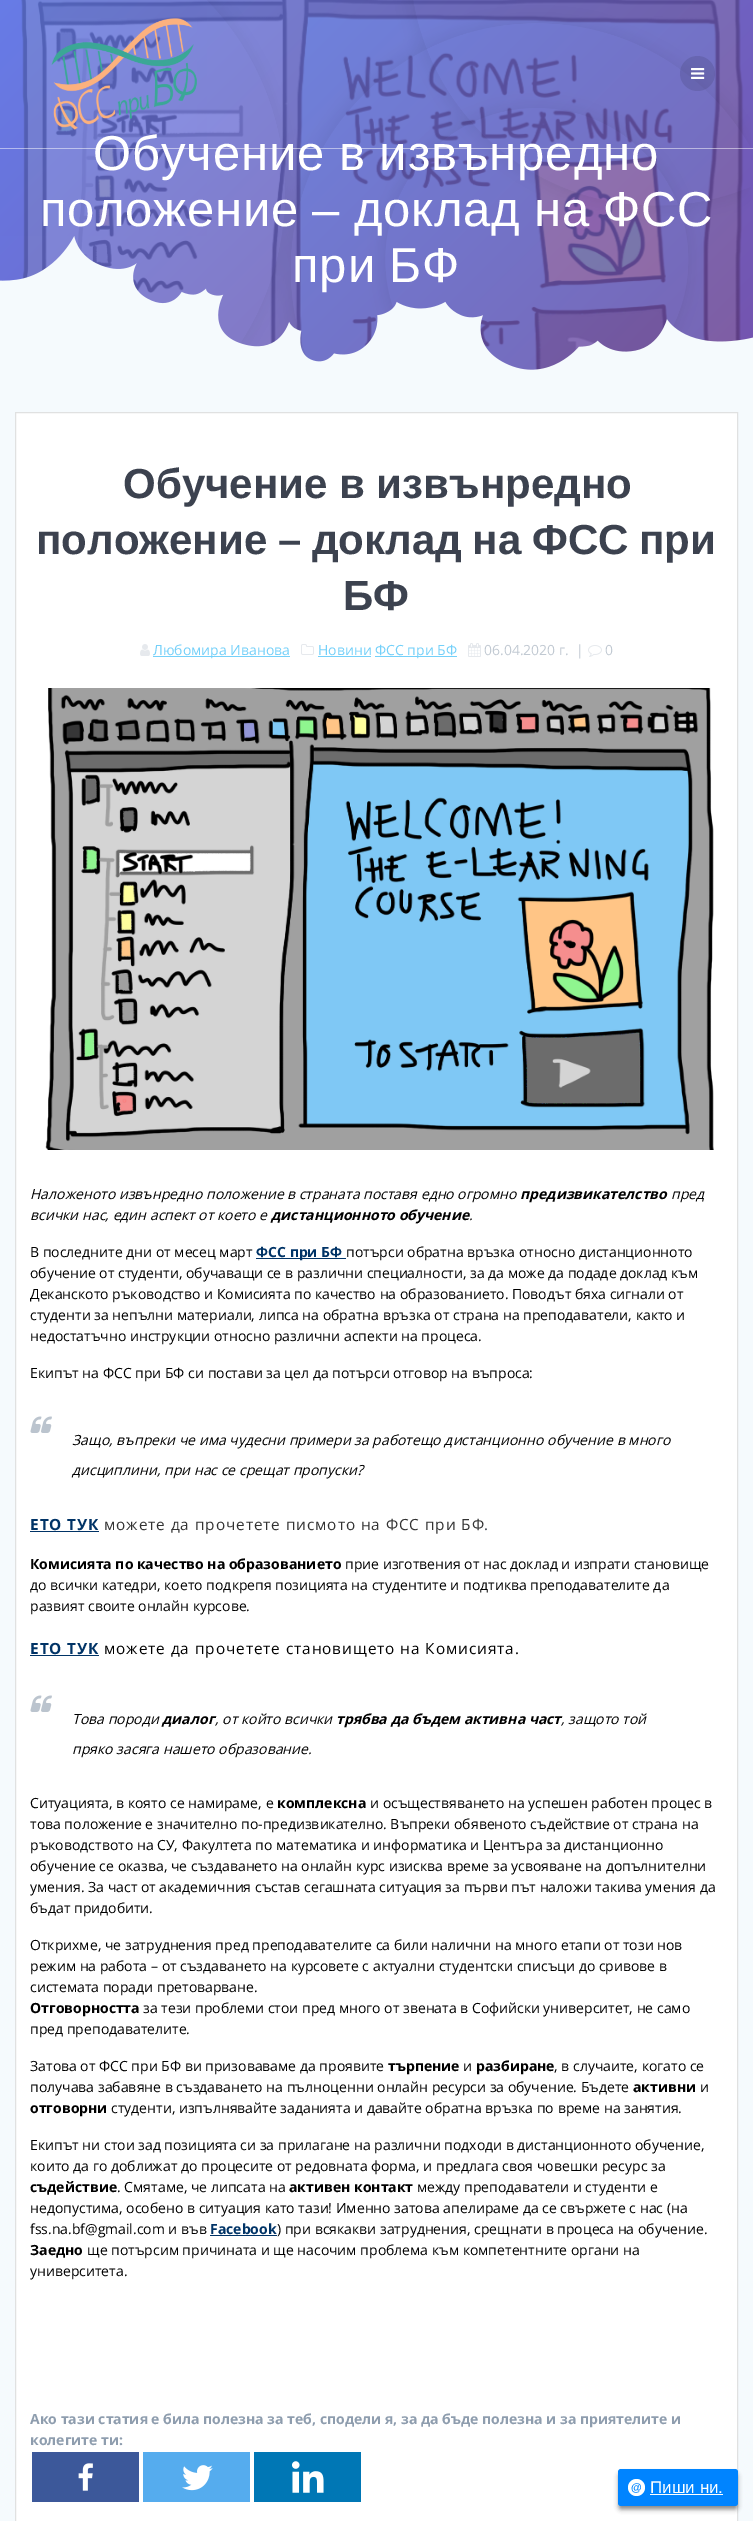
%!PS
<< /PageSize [753 2521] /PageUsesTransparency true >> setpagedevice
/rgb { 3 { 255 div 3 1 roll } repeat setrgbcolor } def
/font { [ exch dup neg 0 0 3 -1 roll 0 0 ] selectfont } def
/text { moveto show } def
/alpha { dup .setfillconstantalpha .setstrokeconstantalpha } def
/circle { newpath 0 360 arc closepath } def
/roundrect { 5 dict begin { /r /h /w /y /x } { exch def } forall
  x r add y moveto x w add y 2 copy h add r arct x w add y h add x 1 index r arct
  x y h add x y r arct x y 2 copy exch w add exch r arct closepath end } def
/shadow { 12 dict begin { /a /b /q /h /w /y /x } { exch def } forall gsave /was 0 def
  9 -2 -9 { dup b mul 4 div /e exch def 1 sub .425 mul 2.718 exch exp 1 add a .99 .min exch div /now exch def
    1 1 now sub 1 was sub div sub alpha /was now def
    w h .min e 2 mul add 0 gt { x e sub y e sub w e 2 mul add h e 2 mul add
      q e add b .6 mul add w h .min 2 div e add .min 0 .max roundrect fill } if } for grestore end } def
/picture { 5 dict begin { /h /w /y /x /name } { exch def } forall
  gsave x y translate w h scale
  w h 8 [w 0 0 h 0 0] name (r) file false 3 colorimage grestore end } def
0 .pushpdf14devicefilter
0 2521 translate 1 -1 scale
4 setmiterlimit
106 115 218 rgb
0 0 753 2521 rectfill
(img_03.rgb) 21 0 723 370 picture
0.8 alpha
gsave 0 0 moveto 753 0 rlineto 0 370 rlineto -753 0 rlineto closepath clip newpath
<< /ShadingType 2 /ColorSpace /DeviceRGB /Coords [96 -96 657 466] /Extend [true true] /Function << /FunctionType 2 /Domain [0 1] /C0 [0.4 0.494 0.918] /C1 [0.463 0.294 0.635] /N 1 >> >> shfill grestore
1 alpha
(img_01.rgb) 51 18 146 112 picture
(img_04.rgb) 207 0 544 357 picture
0.1 alpha
0 0 0 rgb
697.5 73.5 17.5 circle fill
1 alpha
(img_02.rgb) 691 68 14 11 picture
(img_05.rgb) 0 236 753 134 picture
245 250 253 rgb
0 370 753 2151 rectfill
255 255 255 rgb
15.5 412.5 moveto 722 0 rlineto 0 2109 rlineto -722 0 rlineto closepath gsave fill grestore
224 225 225 rgb
stroke
(img_06.rgb) 140 644 10 12 picture
116 208 249 rgb
153 656 137 1 rectfill
(img_07.rgb) 301 644 13 11 picture
318 656 53 1 rectfill
375 656 82 1 rectfill
(img_08.rgb) 468 643 13 14 picture
(img_09.rgb) 588 645 14 12 picture
(img_10.rgb) 45 688 669 462 picture
0 51 102 rgb
256 1258 90 1 rectfill
(img_11.rgb) 30 1416 22 17 picture
30 1531 69 1 rectfill
30 1655 69 1 rectfill
(img_11.rgb) 30 1695 22 17 picture
210 2235 67 1 rectfill
60 88 154 rgb
32 2452 107 50 rectfill
(img_12.rgb) 78 2463 15 28 picture
85 172 238 rgb
143 2452 107 50 rectfill
(img_13.rgb) 182 2465 31 26 picture
0 119 181 rgb
254 2452 107 50 rectfill
(img_14.rgb) 292 2461 32 32 picture
0 0 0 rgb
619 2474 118 35 2 2.5 0.5 shadow
0 132 255 rgb
618 2469 120 37 3 roundrect fill
255 255 255 rgb
636.5 2487.5 8.5 circle fill
650 2494 73 1 rectfill
/LiberationSans-Regular 49 font
93 170 moveto -1 0 32 0.9 0 (Обучение в извънредно) awidthshow
0.5 alpha
0 148 753 1 rectfill
1 alpha
40 226 moveto -1.5 0 32 0.9 0 (положение – доклад на ФСС) awidthshow
292 282 moveto -1 0 32 0.9 0 (при БФ) awidthshow
/LiberationSans-Bold 42 font
60 66 79 rgb
(Обучение в извънредно) 123 498 text
36 554 moveto -1 0 32 (положение – доклад на ФСС при) widthshow
(БФ) 343 610 text
/OpenSans-Regular 14 font
116 208 249 rgb
(Любомира Иванова) 153 655 text
(Новини) 318 655 text
(ФСС при БФ) 375 655 text
193 201 210 rgb
(06.04.2020 г.) 484 655 text
(|) 576 655 text
(0) 605 655 text
/OpenSans-Italic 14 font
0 0 0 rgb
(Наложеното извънредно положение в страната поставя едно огромно) 30 1199 text
/OpenSans-BoldItalic 14 font
(предизвикателство) 520 1199 text
/OpenSans-Italic 14 font
(пред) 671 1199 text
(всички нас, един аспект от коeто е) 30 1220 text
/OpenSans-BoldItalic 14 font
(дистанционното обучение) 271 1220 text
/OpenSans-Italic 14 font
(.) 469 1220 text
/OpenSans-Regular 14 font
(В последните дни от месец март) 30 1257 text
/OpenSans-Bold 14 font
0 51 102 rgb
(ФСС при БФ) 256 1257 text
/OpenSans-Regular 14 font
0 0 0 rgb
(потърси обратна връзка относно дистанционното) 346 1257 text
(обучение от студенти, обучаващи се в различни специалности, за да може да подаде доклад към) 30 1278 text
(Деканското ръководство и Комисията по качество на образованието. Поводът бяха сигнали от) 30 1299 text
(студенти за непълни материали, липса на обратна връзка от страна на преподаватели, както и) 30 1320 text
(недостатъчно инструкции относно различни аспекти на процеса.) 30 1341 text
(Екипът на ФСС при БФ си постави за цел да потърси отговор на въпроса:) 30 1378 text
/OpenSans-Italic 14 font
(Защо, въпреки че има чудесни примери за работещо дистанционно обучение в много) 72 1445 text
(дисциплини, при нас се срещат пропуски?) 72 1475 text
/OpenSans-Bold 15.4 font
0 51 102 rgb
30 1530 moveto 0.9 0 (ЕТО ТУК) ashow
/OpenSans-Regular 15.4 font
51 51 51 rgb
104 1530 moveto 0.9 0 (можете да прочетете писмото на ФСС при БФ) ashow
60 66 79 rgb
484 1530 moveto 0.9 0 (.) ashow
/OpenSans-Bold 14 font
0 0 0 rgb
(Комисията по качество на образованието) 30 1569 text
/OpenSans-Regular 14 font
(прие изготвения от нас доклад и изпрати становище) 345 1569 text
(до всички катедри, което подкрепя позицията на студентите и подтиква преподавателите да) 30 1590 text
(развият своите онлайн курсове.) 30 1611 text
/OpenSans-Bold 15.4 font
0 51 102 rgb
30 1654 moveto 0.9 0 (ЕТО ТУК) ashow
/OpenSans-Regular 15.4 font
0 0 0 rgb
104 1654 moveto 0.9 0 (можете да прочетете становището на Комисията.) ashow
/OpenSans-Italic 14 font
(Това породи) 72 1724 text
/OpenSans-BoldItalic 14 font
(диалог) 162 1724 text
/OpenSans-Italic 14 font
(, от който всички) 215 1724 text
/OpenSans-BoldItalic 14 font
(трябва да бъдем активна част) 336 1724 text
/OpenSans-Italic 14 font
(, защото той) 561 1724 text
(пряко засяга нашето образование.) 72 1754 text
/OpenSans-Regular 14 font
(Ситуацията, в която се намираме, е) 30 1808 text
/OpenSans-Bold 14 font
(комплексна) 277 1808 text
/OpenSans-Regular 14 font
(и осъществяването на успешен работен процес в) 370 1808 text
(това положение е значително по-предизвикателно. Въпреки обявеното съдействие от страна на) 30 1829 text
(ръководството на СУ, Факултета по математика и информатика и Центъра за дистанционно) 30 1850 text
(обучение се оказва, че създаването на онлайн курс изисква време за усвояване на допълнителни) 30 1871 text
(умения. За част от академичния състав сегашната ситуация за първи път наложи такива умения да) 30 1892 text
(бъдат придобити.) 30 1913 text
(Открихме, че затруднения пред преподавателите са били налични на много етапи от този нов) 30 1950 text
(режим на работа – от създаването на курсовете с актуални студентски списъци до сривове в) 30 1971 text
(системата поради претоварване.) 30 1992 text
/OpenSans-Bold 14 font
(Отговорността) 30 2013 text
/OpenSans-Regular 14 font
(за тези проблеми стои пред много от звената в Софийски университет, не само) 143 2013 text
(пред преподавателите.) 30 2034 text
(Затова от ФСС при БФ ви призоваваме да проявите) 30 2071 text
/OpenSans-Bold 14 font
(търпение) 388 2071 text
/OpenSans-Regular 14 font
(и) 463 2071 text
/OpenSans-Bold 14 font
(разбиране) 476 2071 text
/OpenSans-Regular 14 font
(, в случаите, когато се) 554 2071 text
(получава забавяне в създаването на пълноценни онлайн ресурси за обучение. Бъдете) 30 2092 text
/OpenSans-Bold 14 font
(активни) 633 2092 text
/OpenSans-Regular 14 font
(и) 700 2092 text
/OpenSans-Bold 14 font
(отговорни) 30 2113 text
/OpenSans-Regular 14 font
(студенти, изпълнявайте заданията и давайте обратна връзка по време на занятия.) 111 2113 text
(Екипът ни стои зад позицията си за прилагане на различни подходи в дистанционното обучение,) 30 2150 text
(които да го доближат до процесите от редовната форма, и предлага своя човешки ресурс за) 30 2171 text
/OpenSans-Bold 14 font
(съдействие) 30 2192 text
/OpenSans-Regular 14 font
(. Смятаме, че липсата на) 117 2192 text
/OpenSans-Bold 14 font
(активен контакт) 289 2192 text
/OpenSans-Regular 14 font
(между преподаватели и студенти е) 417 2192 text
(недопустима, особено в ситуация като тази! Именно затова апелираме да се свържете с нас \(на) 30 2213 text
(fss.na.bf@gmail.com и във) 30 2234 text
/OpenSans-Bold 14 font
0 51 102 rgb
(Facebook) 210 2234 text
/OpenSans-Regular 14 font
0 0 0 rgb
(\) при всякакви затруднения, срещнати в процеса на обучение.) 277 2234 text
/OpenSans-Bold 14 font
(Заедно) 30 2255 text
/OpenSans-Regular 14 font
(ще потърсим причината и ще насочим проблема към компетентните органи на) 87 2255 text
(университета.) 30 2276 text
/OpenSans-Bold 14 font
142 157 174 rgb
(Ако тази статия е била полезна за теб, сподели я, за да бъде полезна и за приятелите и) 30 2424 text
(колегите ти:) 30 2445 text
/LiberationSans-Bold 11 font
0 132 255 rgb
(@) 631 2491 text
/LiberationSans-Regular 17 font
255 255 255 rgb
(Пиши ни.) 650 2493 text
.poppdf14devicefilter showpage
